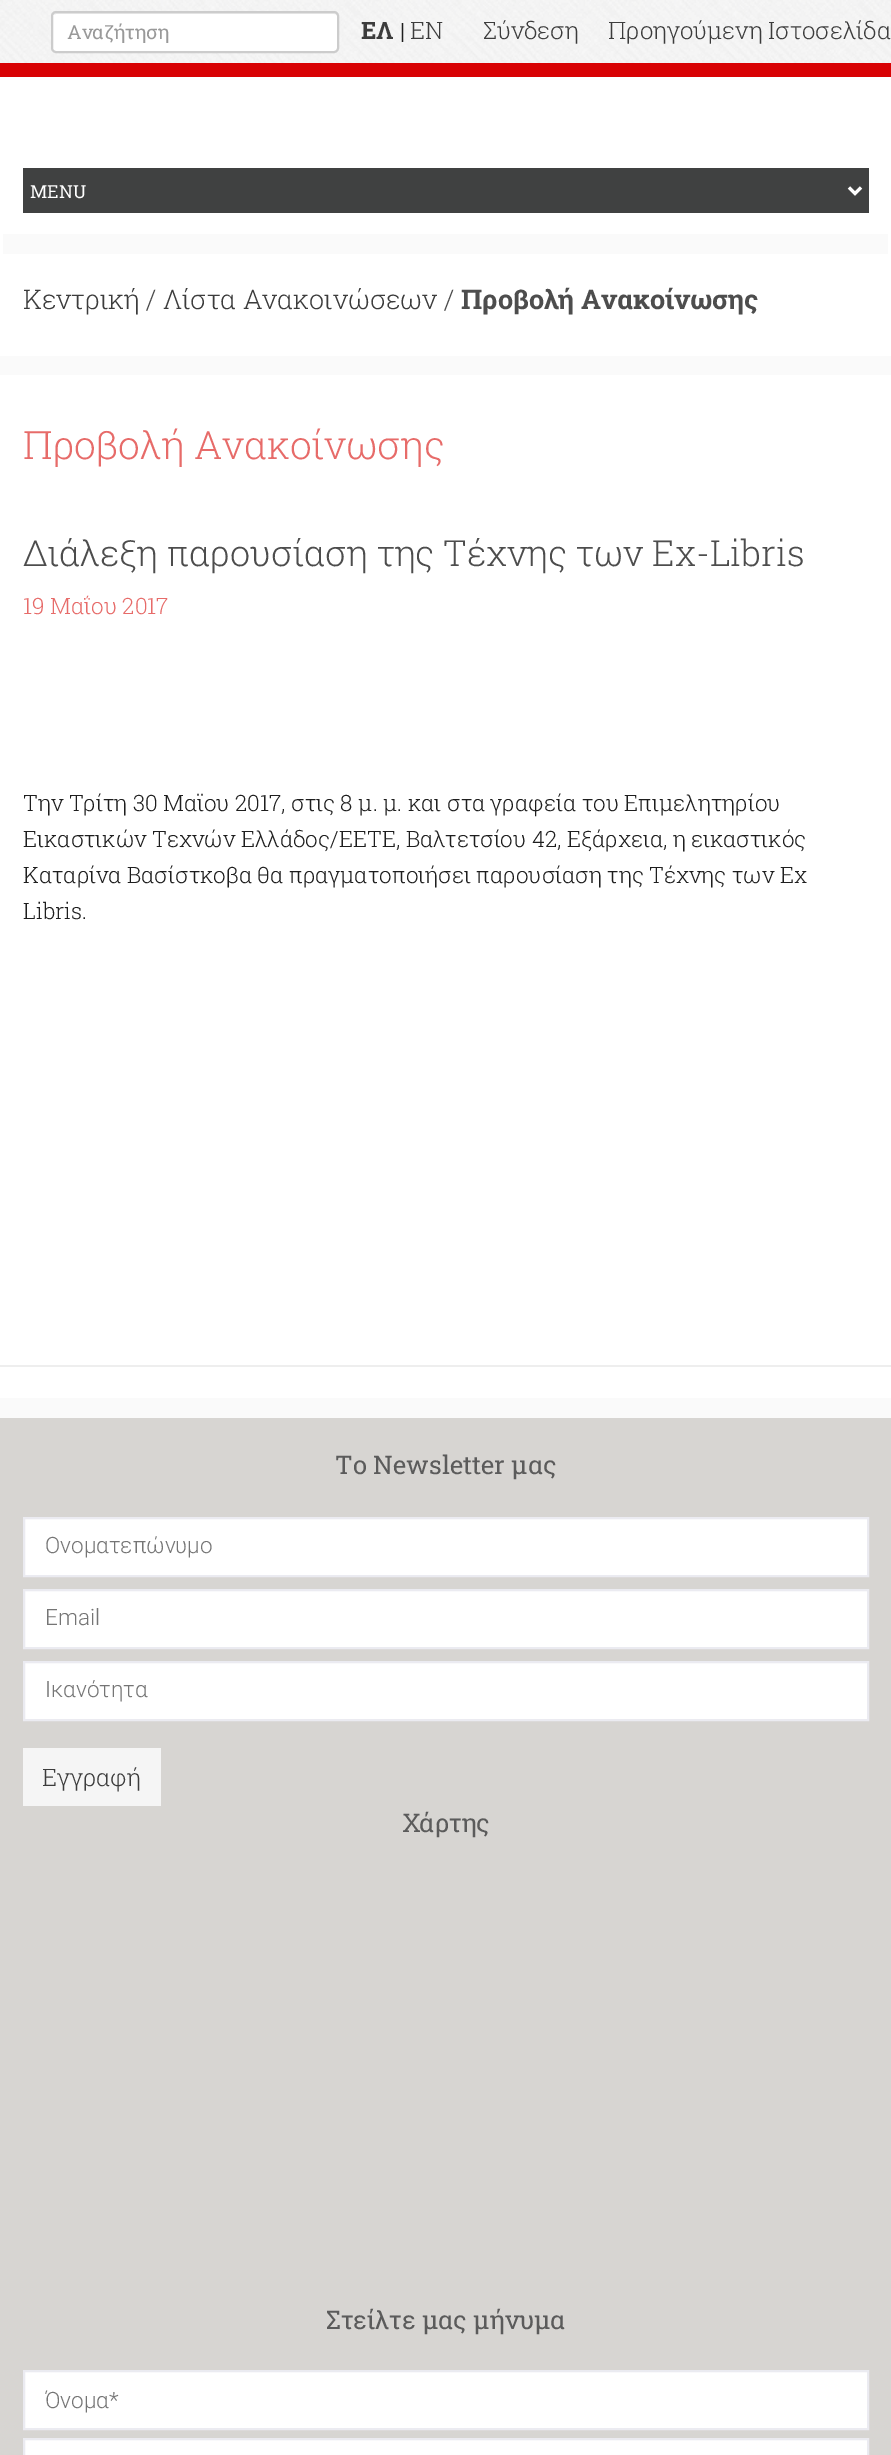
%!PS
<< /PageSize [891 2455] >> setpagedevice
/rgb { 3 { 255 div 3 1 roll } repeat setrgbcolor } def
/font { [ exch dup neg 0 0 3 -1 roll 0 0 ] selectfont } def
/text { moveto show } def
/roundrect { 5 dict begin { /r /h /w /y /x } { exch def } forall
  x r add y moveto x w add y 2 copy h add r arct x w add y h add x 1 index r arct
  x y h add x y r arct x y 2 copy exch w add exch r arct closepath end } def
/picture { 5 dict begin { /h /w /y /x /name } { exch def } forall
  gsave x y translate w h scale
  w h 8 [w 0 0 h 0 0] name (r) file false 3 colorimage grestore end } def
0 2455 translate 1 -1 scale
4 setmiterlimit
255 255 255 rgb
0 0 891 2455 rectfill
(img_01.rgb) 0 0 891 63 picture
51 11 288 42 5 roundrect fill
236 236 236 rgb
56 14 moveto 278 0 rlineto 2 0 4 1 4 2 rcurveto 0 -1 rlineto 0 -2 -1 -3 -3 -3 rcurveto -279 0 rlineto -2 0 -3 1 -3 3 rcurveto closepath fill
204 204 204 rgb
2 setlinewidth
52 12 286 40 4 roundrect stroke
216 2 4 rgb
0 63 891 14 rectfill
64 65 65 rgb
23 168 846 45 rectfill
255 255 255 rgb
3 setlinewidth
849 187.5 moveto 6 6 rlineto 6 -6 rlineto stroke
250 250 250 rgb
3 234 885 20 rectfill
0 356 891 19 rectfill
238 238 238 rgb
0 1365 891 2 rectfill
215 213 210 rgb
0 1418 891 1037 rectfill
250 250 250 rgb
0 1398 891 20 rectfill
255 255 255 rgb
24 1518 moveto 844 0 rlineto 0 58 rlineto -844 0 rlineto closepath gsave fill grestore
235 235 241 rgb
2 setlinewidth
stroke
255 255 255 rgb
24 1590 moveto 844 0 rlineto 0 58 rlineto -844 0 rlineto closepath gsave fill grestore
235 235 241 rgb
stroke
255 255 255 rgb
24 1662 moveto 844 0 rlineto 0 58 rlineto -844 0 rlineto closepath gsave fill grestore
235 235 241 rgb
stroke
245 245 245 rgb
23 1748 138 58 rectfill
255 255 255 rgb
24 2371 moveto 844 0 rlineto 0 58 rlineto -844 0 rlineto closepath gsave fill grestore
235 235 241 rgb
stroke
255 255 255 rgb
24 2439 moveto 844 0 rlineto 0 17 rlineto -844 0 rlineto closepath gsave fill grestore
235 235 241 rgb
stroke
/RobotoSlab-Regular 19.5 font
153 153 153 rgb
(Αναζήτηση) 67 39 text
/RobotoSlab-Bold 24 font
60 60 60 rgb
(ΕΛ) 361 39 text
/RobotoSlab-Regular 22.5 font
30 30 30 rgb
(|) 400 39 text
/RobotoSlab-Light 24 font
60 60 60 rgb
(EN) 410 39 text
(Σύνδεση) 483 39 text
(Προηγούμενη Ιστοσελίδα) 608 39 text
/RobotoSlab-Regular 18 font
255 255 255 rgb
(MENU) 30 198 text
/RobotoSlab-Light 27 font
60 60 60 rgb
(Κεντρική) 23 309 text
77 77 77 rgb
(/) 146 309 text
60 60 60 rgb
(Λίστα Ανακοινώσεων) 163 309 text
77 77 77 rgb
(/) 444 309 text
/RobotoSlab-Bold 27 font
(Προβολή Ανακοίνωσης) 461 309 text
/RobotoSlab-Light 39 font
231 107 105 rgb
(Προβολή Ανακοίνωσης) 23 459 text
/RobotoSlab-Light 36 font
77 77 77 rgb
(Διάλεξη παρουσίαση της Τέχνης των Ex-Libris) 23 566 text
/RobotoSlab-Light 22.5 font
231 107 105 rgb
(19 Μαΐου 2017) 23 614 text
30 30 30 rgb
(Την Τρίτη 30 Μαϊου 2017, στις 8 μ. μ. και στα γραφεία του Επιμελητηρίου) 23 811 text
(Εικαστικών Τεχνών Ελλάδος/ΕΕΤΕ, Βαλτετσίου 42, Εξάρχεια, η εικαστικός) 23 847 text
(Καταρίνα Βασίστκοβα θα πραγματοποιήσει παρουσίαση της Τέχνης των Ex) 23 883 text
(Libris.) 23 919 text
/RobotoSlab-Regular 25.5 font
91 91 91 rgb
(Το Newsletter μας) 335 1474 text
/Roboto-Light 22.5 font
117 117 117 rgb
(Ονοματεπώνυμο) 45 1553 text
(Email) 45 1625 text
(Ικανότητα) 45 1697 text
/RobotoSlab-Light 24 font
60 60 60 rgb
(Εγγραφή) 42 1786 text
/RobotoSlab-Regular 25.5 font
91 91 91 rgb
(Χάρτης) 402 1832 text
(Στείλτε μας μήνυμα) 326 2329 text
/Roboto-Light 22.5 font
117 117 117 rgb
(Όνομα*) 45 2408 text
showpage
